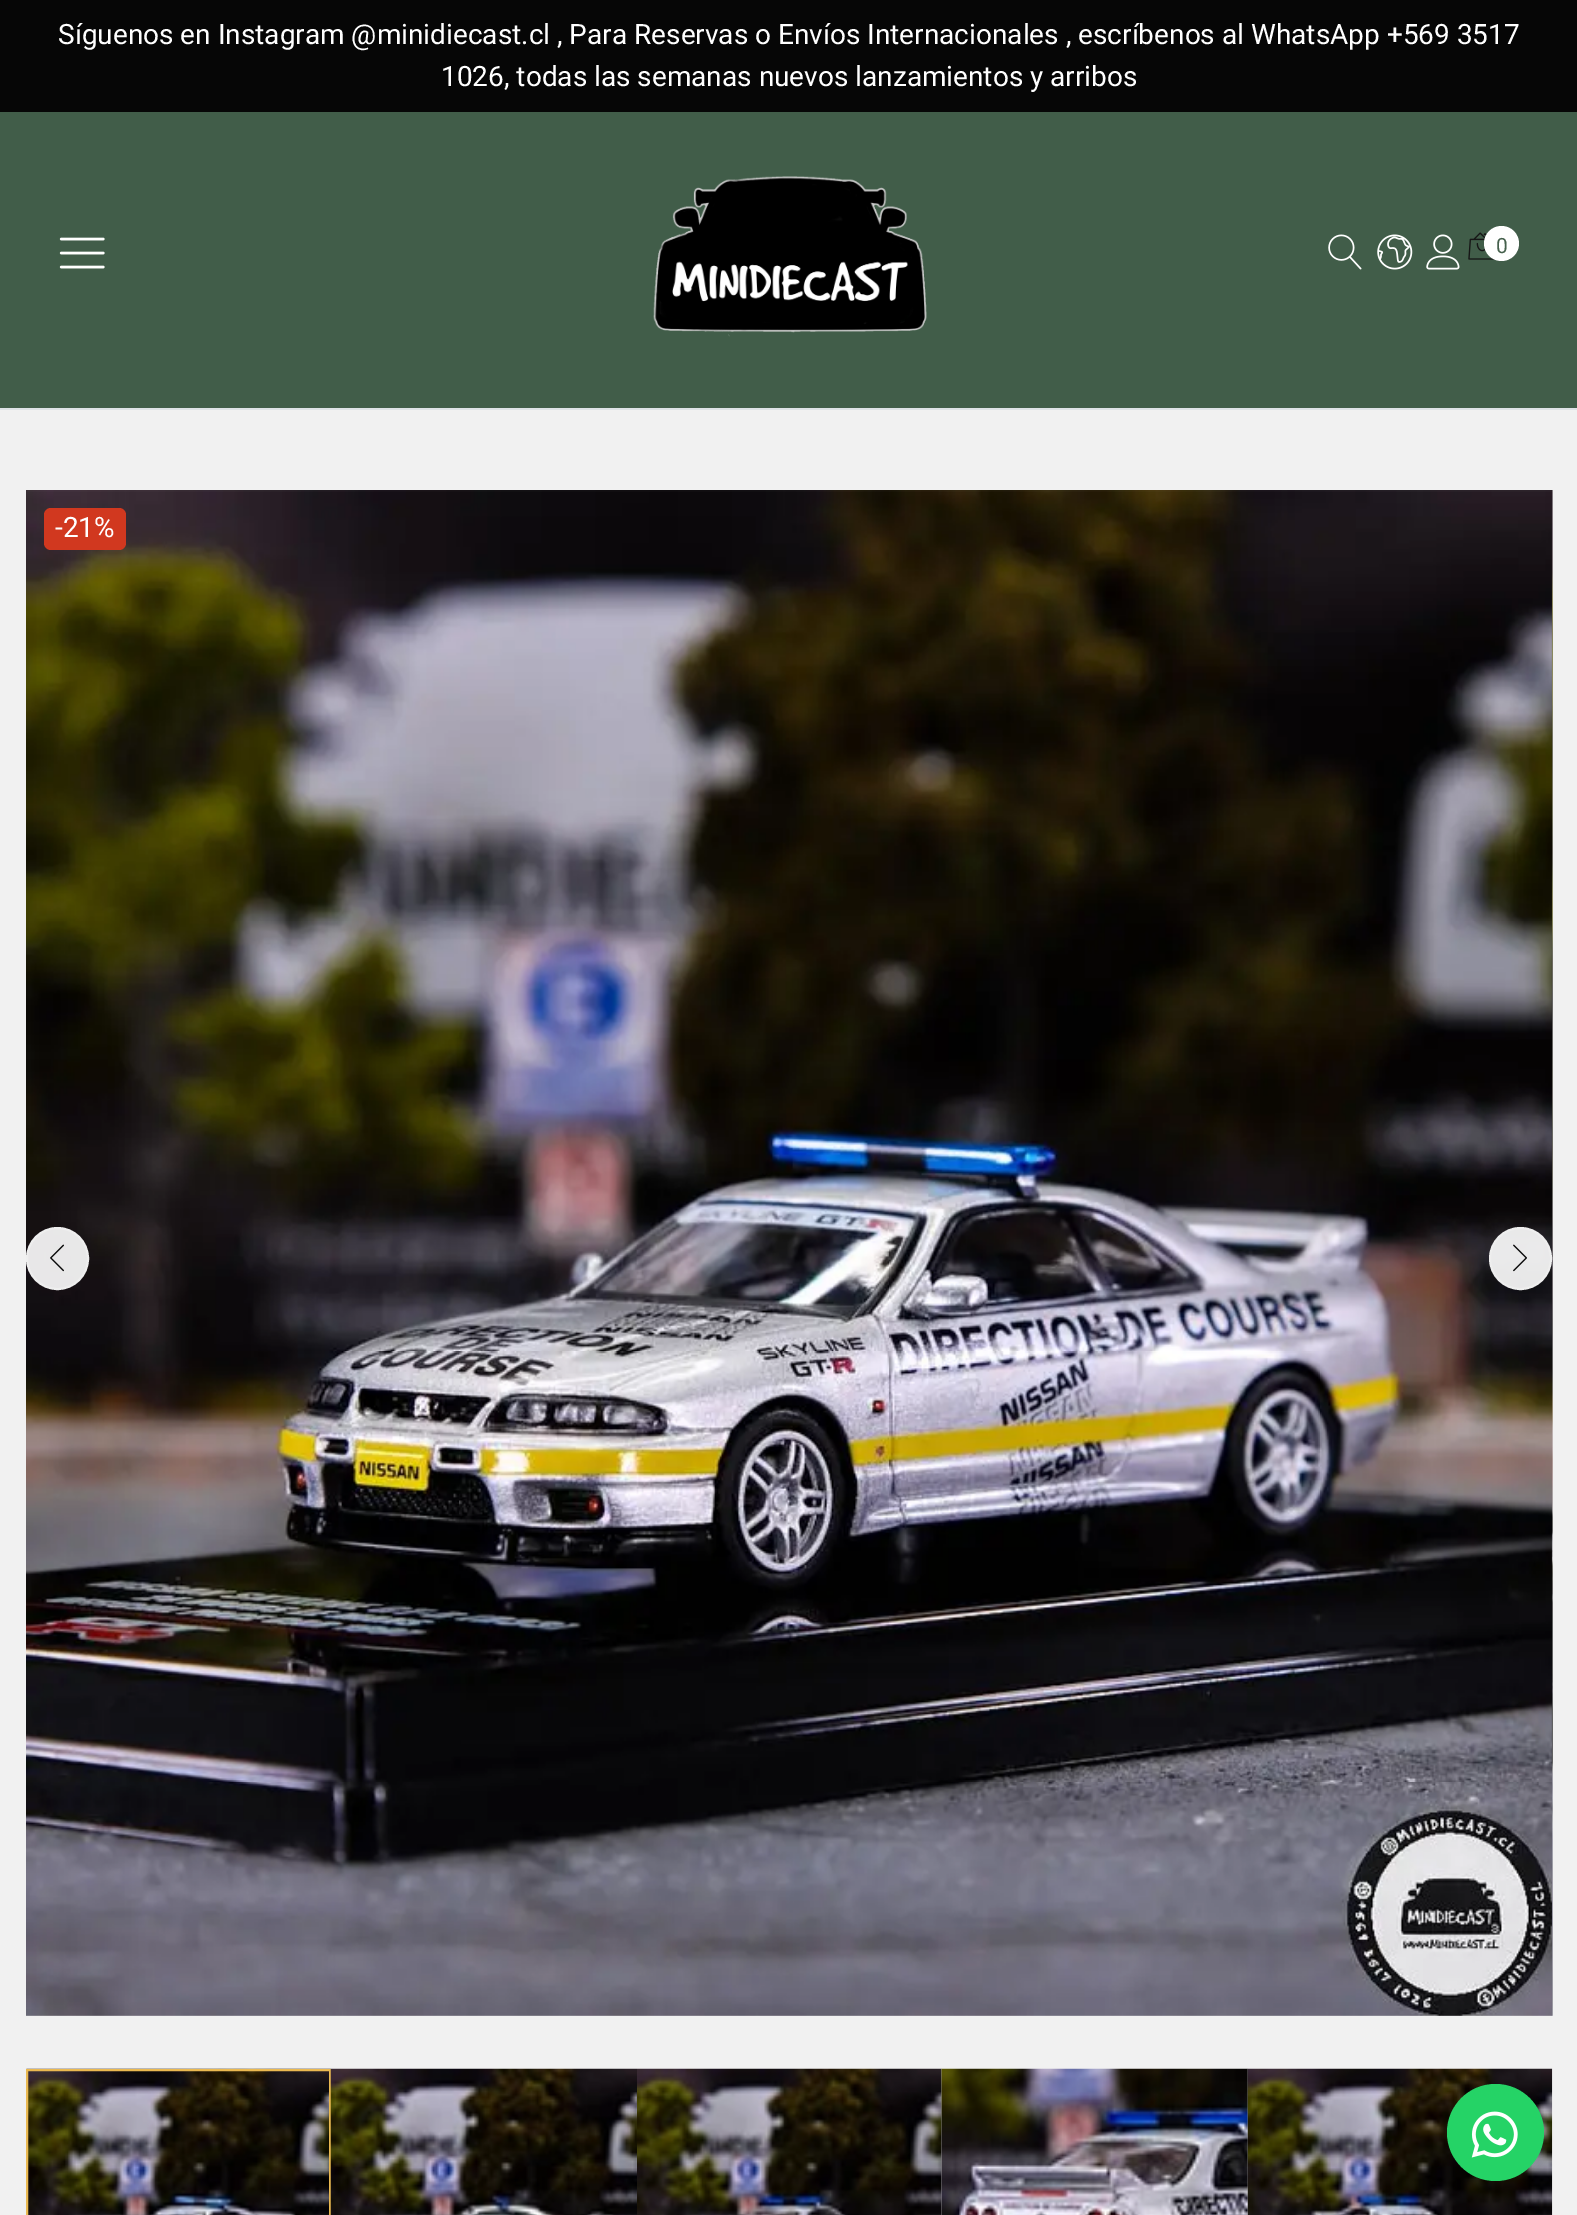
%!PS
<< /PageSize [1577 2215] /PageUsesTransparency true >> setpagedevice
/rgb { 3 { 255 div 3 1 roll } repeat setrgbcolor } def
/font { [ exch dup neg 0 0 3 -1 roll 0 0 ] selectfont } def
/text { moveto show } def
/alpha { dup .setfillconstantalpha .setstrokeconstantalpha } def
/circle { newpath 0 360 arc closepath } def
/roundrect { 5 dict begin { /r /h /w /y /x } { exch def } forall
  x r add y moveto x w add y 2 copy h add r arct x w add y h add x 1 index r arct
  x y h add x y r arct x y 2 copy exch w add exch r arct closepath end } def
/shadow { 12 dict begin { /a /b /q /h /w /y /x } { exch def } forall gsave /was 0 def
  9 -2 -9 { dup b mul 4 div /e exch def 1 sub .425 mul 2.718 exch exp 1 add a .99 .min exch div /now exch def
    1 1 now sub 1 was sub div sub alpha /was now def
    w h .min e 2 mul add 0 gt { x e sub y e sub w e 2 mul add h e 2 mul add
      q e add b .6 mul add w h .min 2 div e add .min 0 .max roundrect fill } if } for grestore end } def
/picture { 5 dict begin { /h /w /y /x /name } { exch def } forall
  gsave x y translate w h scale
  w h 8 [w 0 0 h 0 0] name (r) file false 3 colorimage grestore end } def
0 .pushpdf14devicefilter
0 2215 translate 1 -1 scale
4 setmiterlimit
241 241 241 rgb
0 0 1577 2215 rectfill
65 93 73 rgb
0 112 1577 296 rectfill
222 226 230 rgb
0 408 1577 2 rectfill
6 6 6 rgb
0 0 1577 112 rectfill
(img_01.rgb) 59 237 46 32 picture
(img_02.rgb) 653 176 274 161 picture
(img_03.rgb) 1328 234 34 36 picture
(img_04.rgb) 1377 234 36 36 picture
(img_05.rgb) 1426 234 34 36 picture
(img_06.rgb) 1468 232 28 28 picture
255 255 255 rgb
1501.5 243.5 17.5 circle fill
(img_07.rgb) 26 490 1526 1526 picture
(img_08.rgb) 1551 490 2 1526 picture
0.9 alpha
57.5 1258.5 30.5 circle fill
1 alpha
238 238 238 rgb
2 setlinewidth
57.5 1258.5 30.5 circle stroke
(img_09.rgb) 50 1244 14 28 picture
0.9 alpha
255 255 255 rgb
1520.5 1258.5 30.5 circle fill
1 alpha
238 238 238 rgb
1520.5 1258.5 30.5 circle stroke
(img_10.rgb) 1513 1244 14 28 picture
(img_11.rgb) 26 2068 305 147 picture
234 185 81 rgb
27 2070 303 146 rectstroke
(img_12.rgb) 330 2068 307 147 picture
(img_13.rgb) 637 2068 305 147 picture
(img_14.rgb) 941 2068 307 147 picture
(img_15.rgb) 1247 2068 306 147 picture
209 56 31 rgb
44 508 82 42 7 roundrect fill
0 0 0 rgb
1447 2084 97 97 48.5 4.5 0.11 shadow
37 211 102 rgb
1495.5 2132.5 48.5 circle fill
(img_16.rgb) 1471 2111 47 47 picture
/Roboto-Regular 28 font
255 255 255 rgb
(Síguenos en Instagram @minidiecast.cl , Para Reservas o Envíos Internacionales , escríbenos al WhatsApp +569 3517) 58 44 text
(1026, todas las semanas nuevos lanzamientos y arribos) 441 86 text
/Roboto-Regular 21 font
69 96 76 rgb
(0) 1496 253 text
/Roboto-Regular 28 font
255 255 255 rgb
(-21%) 55 537 text
.poppdf14devicefilter showpage
